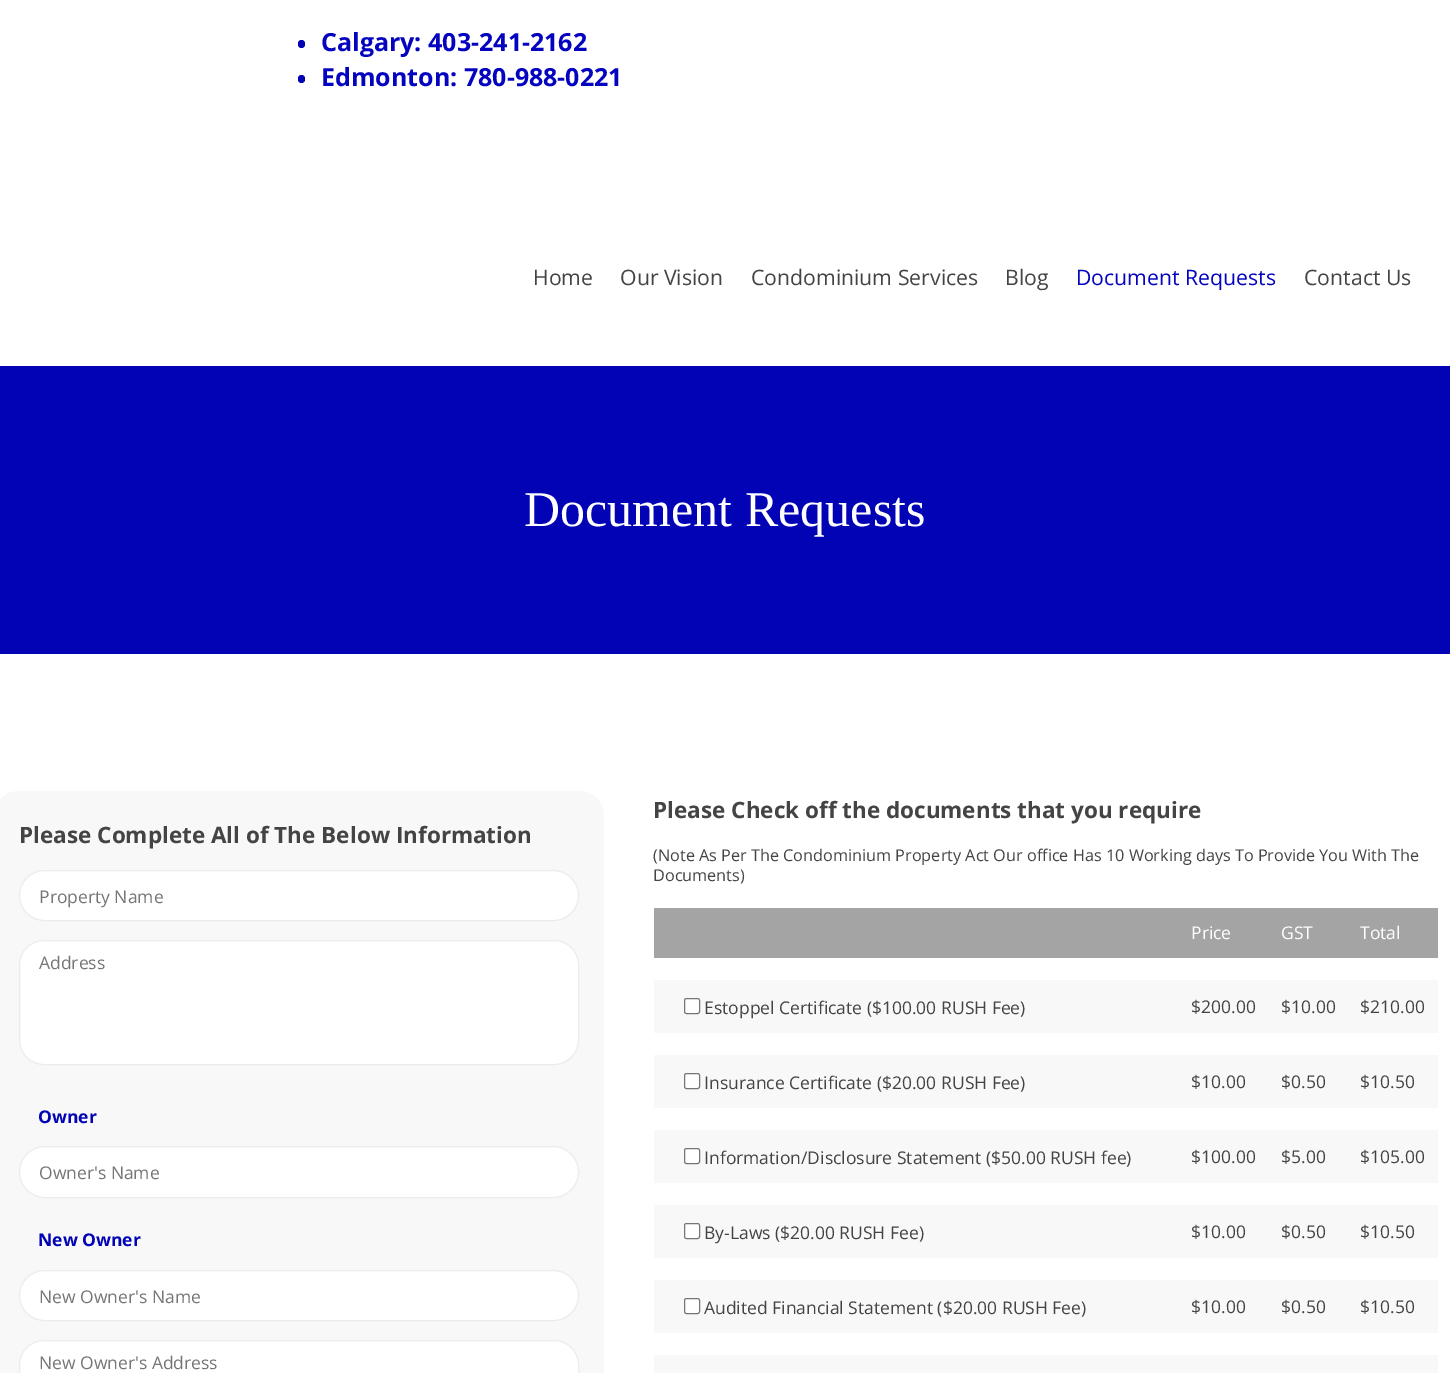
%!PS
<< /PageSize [1450 1373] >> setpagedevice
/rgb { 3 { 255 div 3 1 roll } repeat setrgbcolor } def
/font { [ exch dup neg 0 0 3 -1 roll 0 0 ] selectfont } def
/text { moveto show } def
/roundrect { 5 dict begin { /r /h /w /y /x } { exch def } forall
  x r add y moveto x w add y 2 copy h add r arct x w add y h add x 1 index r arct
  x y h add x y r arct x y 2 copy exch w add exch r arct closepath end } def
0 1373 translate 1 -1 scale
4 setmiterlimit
255 255 255 rgb
0 0 1450 1373 rectfill
3 3 182 rgb
298 40 7 8 3.5 roundrect fill
298 75 7 8 3.5 roundrect fill
0 366 1450 288 rectfill
248 248 248 rgb
-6 791 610 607 25 roundrect fill
255 255 255 rgb
19.5 870.5 559 50 25 roundrect gsave fill grestore
236 236 236 rgb
stroke
255 255 255 rgb
19.5 940.5 559 124 24.5 roundrect gsave fill grestore
236 236 236 rgb
stroke
255 255 255 rgb
19.5 1146.5 559 51 25.5 roundrect gsave fill grestore
236 236 236 rgb
stroke
255 255 255 rgb
19.5 1270.5 559 50 25 roundrect gsave fill grestore
236 236 236 rgb
stroke
255 255 255 rgb
19.5 1340.5 559 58 24.5 roundrect gsave fill grestore
236 236 236 rgb
stroke
164 164 164 rgb
654 908 784 50 rectfill
248 248 248 rgb
654 980 784 53 rectfill
255 255 255 rgb
684.5 998.5 15 15 2 roundrect gsave fill grestore
118 118 118 rgb
stroke
248 248 248 rgb
654 1055 784 53 rectfill
255 255 255 rgb
684.5 1073.5 15 15 2 roundrect gsave fill grestore
118 118 118 rgb
stroke
248 248 248 rgb
654 1130 784 53 rectfill
255 255 255 rgb
684.5 1148.5 15 15 2 roundrect gsave fill grestore
118 118 118 rgb
stroke
248 248 248 rgb
654 1205 784 53 rectfill
255 255 255 rgb
684.5 1223.5 15 15 2 roundrect gsave fill grestore
118 118 118 rgb
stroke
248 248 248 rgb
654 1280 784 53 rectfill
255 255 255 rgb
684.5 1298.5 15 15 2 roundrect gsave fill grestore
118 118 118 rgb
stroke
248 248 248 rgb
654 1355 784 18 rectfill
/OpenSans-Bold 25 font
4 4 192 rgb
(Calgary: 403-241-2162) 321 51 text
(Edmonton: 780-988-0221) 321 86 text
/OpenSans-Regular 21.25 font
68 68 68 rgb
(Home) 533 285 text
(Our Vision) 620 285 text
(Condominium Services) 751 285 text
(Blog) 1005 285 text
4 4 192 rgb
(Document Requests) 1076 285 text
68 68 68 rgb
(Contact Us) 1304 285 text
/LiberationSerif-Regular 50 font
255 255 255 rgb
(Document Requests) 524 526 text
/OpenSans-Bold 22.5 font
68 68 68 rgb
(Please Complete All of The Below Information) 19 843 text
/OpenSans-Regular 17.5 font
117 117 117 rgb
(Property Name) 39 903 text
(Address) 39 969 text
/OpenSans-Bold 17.5 font
3 3 182 rgb
(Owner) 38 1123 text
/OpenSans-Regular 17.5 font
117 117 117 rgb
(Owner's Name) 39 1179 text
/OpenSans-Bold 17.5 font
3 3 182 rgb
(New Owner) 38 1246 text
/OpenSans-Regular 17.5 font
117 117 117 rgb
(New Owner's Name) 39 1303 text
(New Owner's Address) 39 1369 text
/OpenSans-Bold 22.5 font
68 68 68 rgb
(Please Check off the documents that you require) 653 818 text
/OpenSans-Regular 16.25 font
(\(Note As Per The Condominium Property Act Our office Has 10 Working days To Provide You With The) 653 861 text
(Documents\)) 653 881 text
/OpenSans-Regular 17.5 font
255 255 255 rgb
(Price) 1191 939 text
(GST) 1281 939 text
(Total) 1360 939 text
68 68 68 rgb
(Estoppel Certificate \($100.00 RUSH Fee\)) 704 1014 text
($200.00) 1191 1013 text
($10.00) 1281 1013 text
($210.00) 1360 1013 text
(Insurance Certificate \($20.00 RUSH Fee\)) 704 1089 text
($10.00) 1191 1088 text
($0.50) 1281 1088 text
($10.50) 1360 1088 text
(Information/Disclosure Statement \($50.00 RUSH fee\)) 704 1164 text
($100.00) 1191 1163 text
($5.00) 1281 1163 text
($105.00) 1360 1163 text
(By-Laws \($20.00 RUSH Fee\)) 704 1239 text
($10.00) 1191 1238 text
($0.50) 1281 1238 text
($10.50) 1360 1238 text
(Audited Financial Statement \($20.00 RUSH Fee\)) 704 1314 text
($10.00) 1191 1313 text
($0.50) 1281 1313 text
($10.50) 1360 1313 text
showpage
